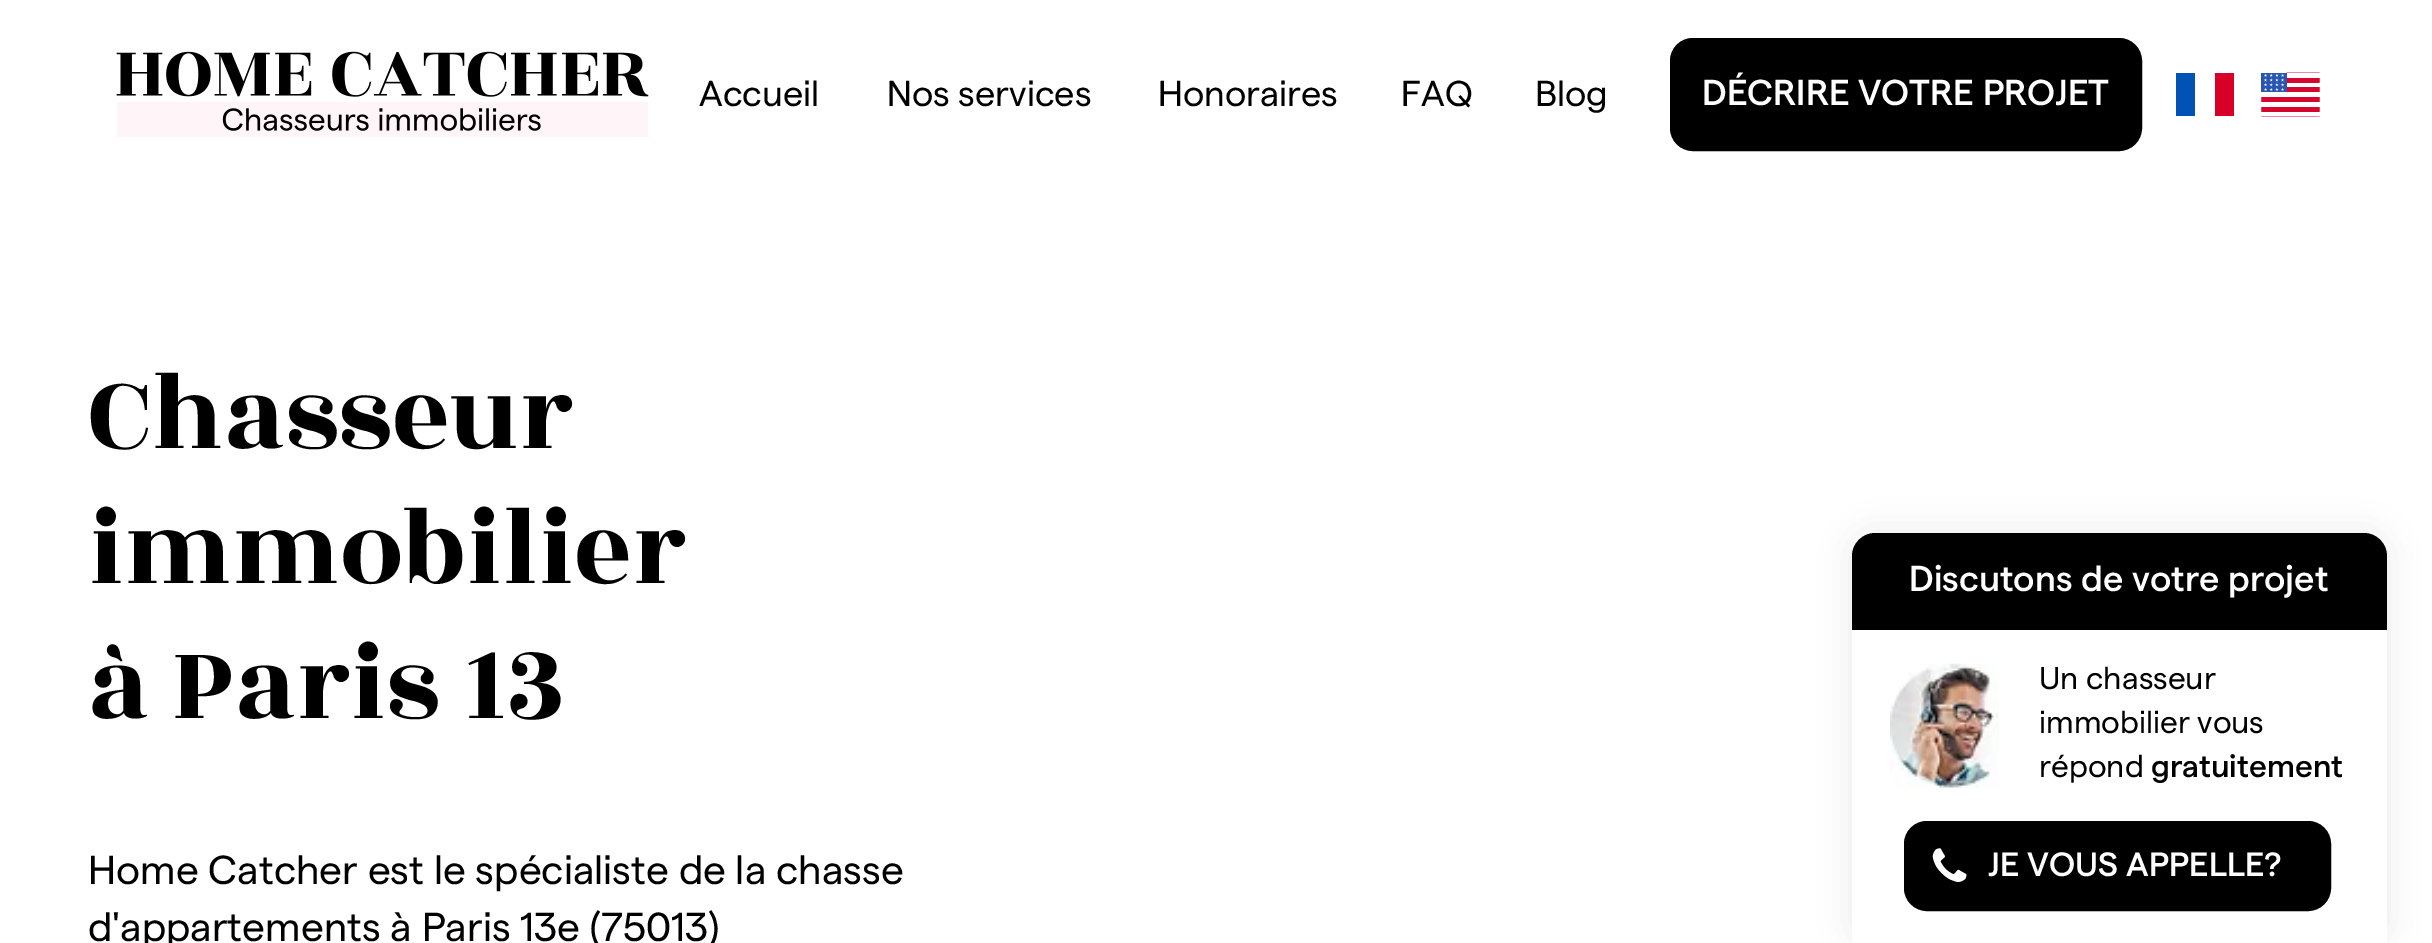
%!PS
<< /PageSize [2432 943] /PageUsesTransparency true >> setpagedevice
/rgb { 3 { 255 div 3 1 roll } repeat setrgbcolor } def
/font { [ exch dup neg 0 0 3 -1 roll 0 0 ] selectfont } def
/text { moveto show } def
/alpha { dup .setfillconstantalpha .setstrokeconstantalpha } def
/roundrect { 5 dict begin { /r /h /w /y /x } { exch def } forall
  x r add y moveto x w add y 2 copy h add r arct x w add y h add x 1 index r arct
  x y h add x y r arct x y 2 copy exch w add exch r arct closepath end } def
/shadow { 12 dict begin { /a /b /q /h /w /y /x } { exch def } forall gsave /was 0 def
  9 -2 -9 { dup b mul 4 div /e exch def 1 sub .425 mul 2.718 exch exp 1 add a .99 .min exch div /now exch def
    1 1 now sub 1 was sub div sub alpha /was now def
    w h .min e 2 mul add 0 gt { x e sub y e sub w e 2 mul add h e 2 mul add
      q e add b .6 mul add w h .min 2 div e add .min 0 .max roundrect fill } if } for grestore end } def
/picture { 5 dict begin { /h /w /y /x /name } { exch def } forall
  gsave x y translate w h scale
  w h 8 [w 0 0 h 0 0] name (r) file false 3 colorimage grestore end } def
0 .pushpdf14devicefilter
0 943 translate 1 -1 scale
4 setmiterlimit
255 255 255 rgb
0 0 2432 943 rectfill
(img_01.rgb) 116 51 533 86 picture
0 0 0 rgb
1671 39 470 111 22 roundrect gsave fill grestore
2 setlinewidth
stroke
0 83 181 rgb
2195 116 moveto -19 0 rlineto 0 -43 rlineto 19 0 rlineto 1 20 rlineto closepath fill
216 0 39 rgb
2234 116 moveto -19 0 rlineto -1 -22 rlineto 1 -21 rlineto 19 0 rlineto closepath fill
255 255 255 rgb
2195 73 20 43 rectfill
(img_02.rgb) 2261 72 59 45 picture
41 41 41 rgb
1852 533 535 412 23 16 0.1 shadow
255 255 255 rgb
1875 533 moveto 489 0 rlineto 12.5 0 23 10.5 23 23 rcurveto 0 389 rlineto -535 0 rlineto 0 -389 rlineto 0 -12.5 10.5 -23 23 -23 rcurveto closepath fill
0 0 0 rgb
1875 533 moveto 489 0 rlineto 12.5 0 23 10.5 23 23 rcurveto 0 74 rlineto -535 0 rlineto 0 -74 rlineto 0 -12.5 10.5 -23 23 -23 rcurveto closepath fill
(img_03.rgb) 1890 663 109 125 picture
1905 822 425 88 22 roundrect gsave fill grestore
stroke
(img_04.rgb) 1932 848 35 34 picture
/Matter-Regular 36 font
(Accueil) 699 106 text
(Nos services) 887 106 text
(Honoraires) 1158 106 text
(FAQ) 1401 106 text
(Blog) 1535 106 text
/Matter-Medium 36 font
255 255 255 rgb
(DÉCRIRE VOTRE PROJET) 1702 105 text
/RozhaOne-Regular 112.5 font
0 0 0 rgb
(Chasseur) 88 448 text
(immobilier) 88 583 text
(à Paris 13) 88 718 text
/Matter-Regular 40.5 font
(Home Catcher est le spécialiste de la chasse) 88 884 text
(d'appartements à Paris 13e \(75013\)) 88 941 text
/Matter-Medium 36 font
255 255 255 rgb
(Discutons de votre projet) 1909 591 text
/Matter-Regular 31.5 font
0 0 0 rgb
(Un chasseur) 2039 689 text
(immobilier vous) 2039 733 text
(répond) 2039 777 text
/Matter-Medium 31.5 font
(gratuitement) 2151 777 text
/Matter-Medium 33.75 font
255 255 255 rgb
(JE VOUS APPELLE?) 1988 876 text
.poppdf14devicefilter showpage
